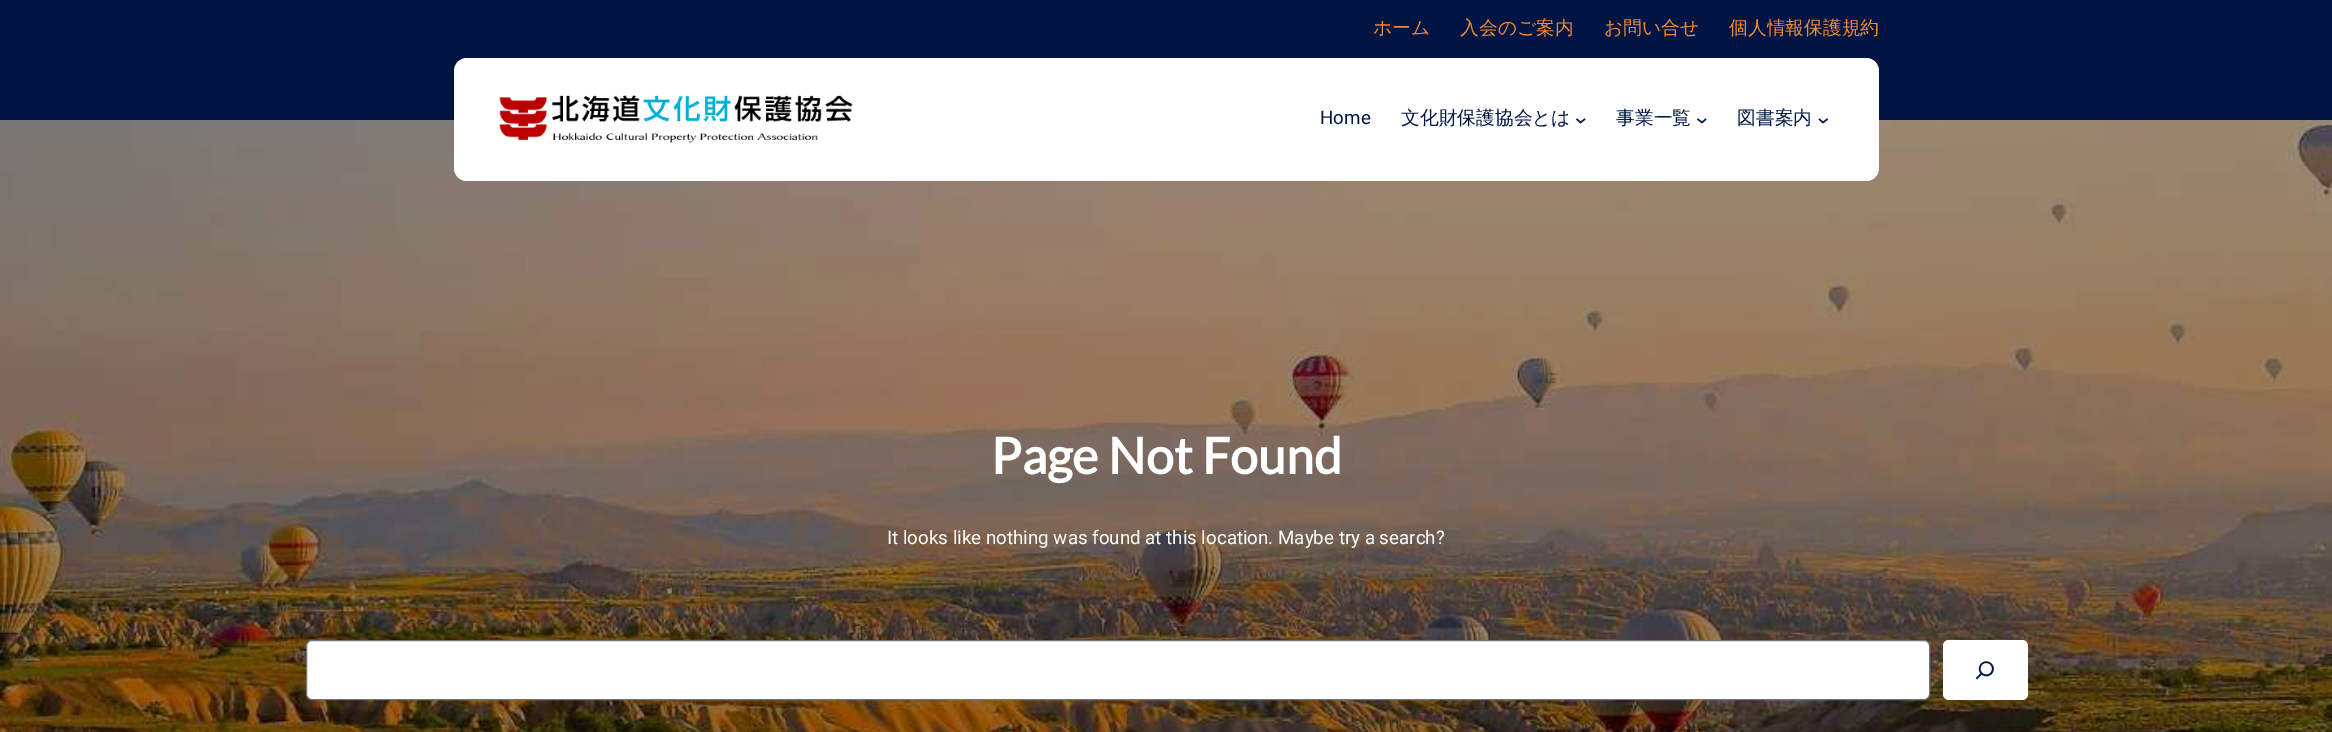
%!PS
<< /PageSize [2332 732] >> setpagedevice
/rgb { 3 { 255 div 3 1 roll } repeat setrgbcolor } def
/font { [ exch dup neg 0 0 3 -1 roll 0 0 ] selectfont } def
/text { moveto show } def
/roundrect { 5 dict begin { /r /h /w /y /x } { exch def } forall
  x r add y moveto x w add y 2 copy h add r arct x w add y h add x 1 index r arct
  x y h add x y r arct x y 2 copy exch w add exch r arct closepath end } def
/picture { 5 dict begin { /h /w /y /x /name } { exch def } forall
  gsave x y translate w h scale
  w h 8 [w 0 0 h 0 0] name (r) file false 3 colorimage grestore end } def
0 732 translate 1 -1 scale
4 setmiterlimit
255 255 255 rgb
0 0 2332 732 rectfill
0 21 68 rgb
0 0 2332 120 rectfill
(img_02.rgb) 0 120 2332 612 picture
255 255 255 rgb
454 58 1425 123 13 roundrect fill
(img_01.rgb) 499 95 354 48 picture
0 21 68 rgb
1.4 setlinewidth
1576.5 119 moveto 4 3.5 rlineto 4.5 -3.5 rlineto stroke
1697.5 119 moveto 4.5 3.5 rlineto 4 -3.5 rlineto stroke
1819 119 moveto 4 3.5 rlineto 4.5 -3.5 rlineto stroke
255 255 255 rgb
306.5 640.5 1623 59 5.5 roundrect gsave fill grestore
111 116 126 rgb
1 setlinewidth
stroke
255 255 255 rgb
1943 640 85 60 6 roundrect fill
(img_03.rgb) 1975 661 19 19 picture
/WenQuanYiZenHei-Medium 18.75 font
242 139 56 rgb
(ホーム) 1373 34 text
(入会のご案内) 1460 34 text
(お問い合せ) 1604 34 text
(個人情報保護規約) 1729 34 text
/Roboto-Regular 18.75 font
0 21 68 rgb
(Home) 1320 124 text
/WenQuanYiZenHei-Medium 18.75 font
(文化財保護協会とは) 1401 124 text
(事業一覧) 1616 124 text
(図書案内) 1737 124 text
/Lato-Bold 50 font
255 255 255 rgb
(Page Not Found) 991 474 text
/Roboto-Regular 18.75 font
(It looks like nothing was found at this location. Maybe try a search?) 887 544 text
showpage
